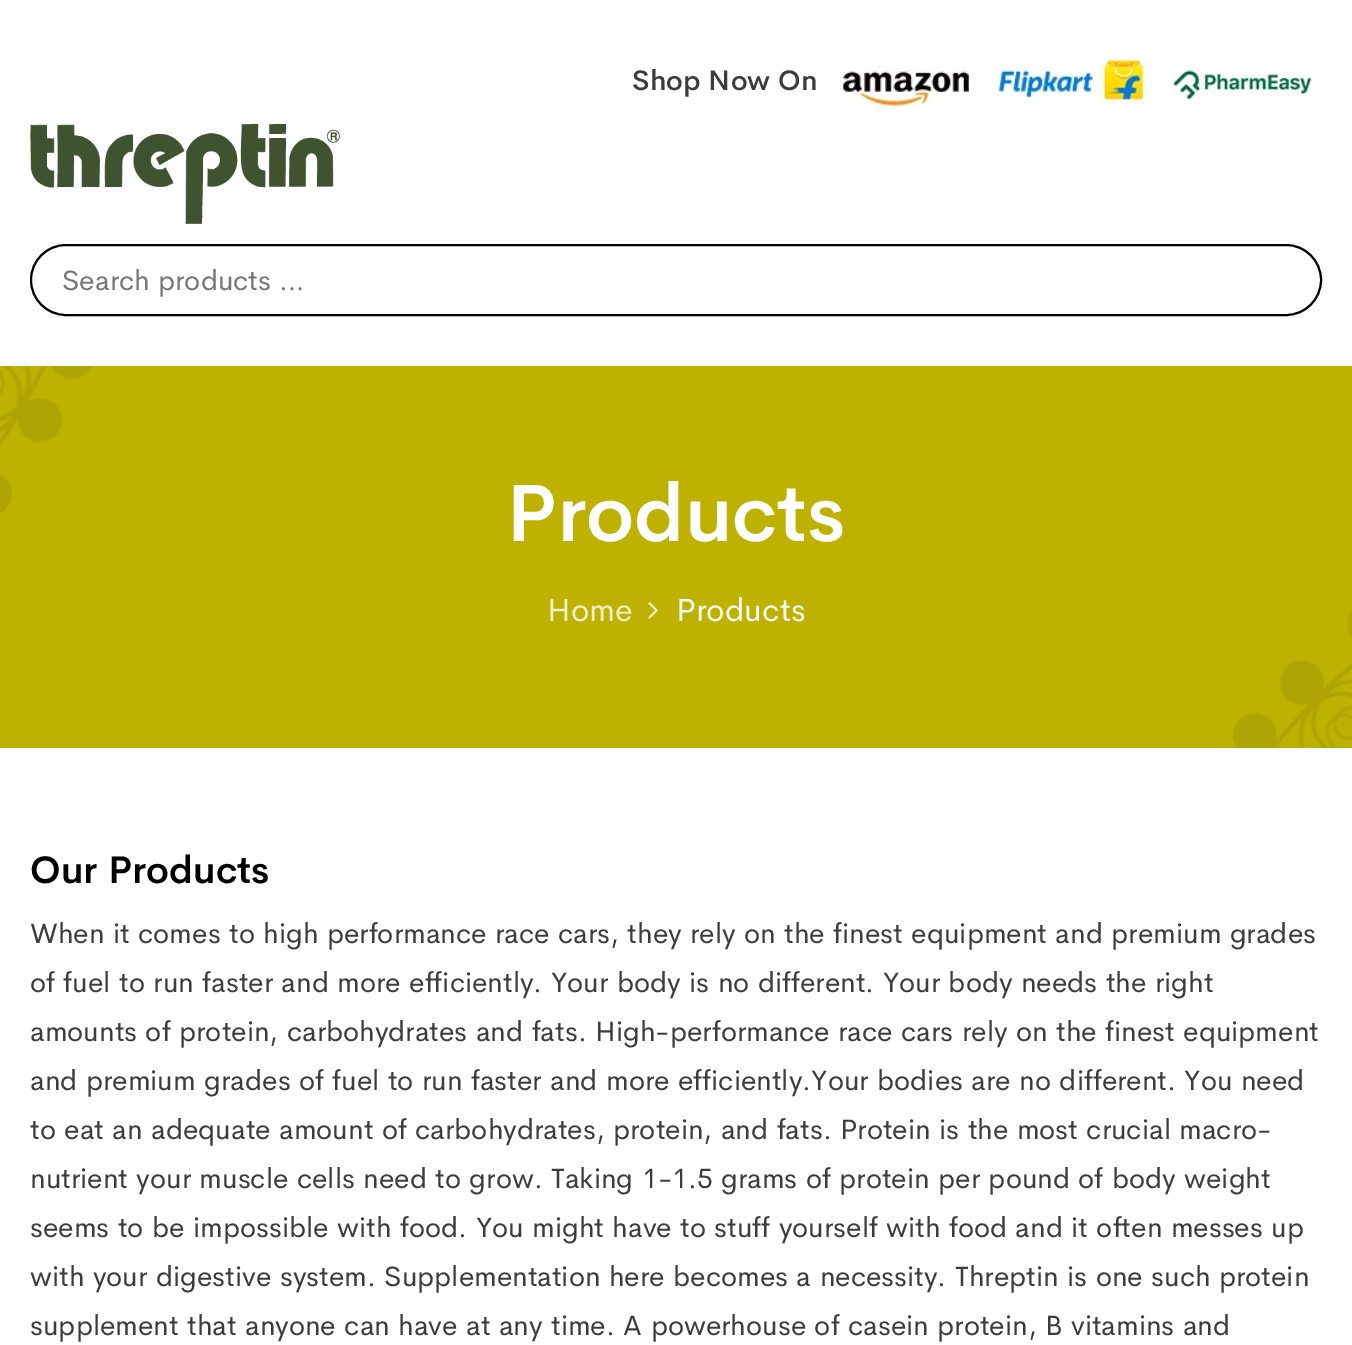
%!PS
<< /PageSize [1352 1345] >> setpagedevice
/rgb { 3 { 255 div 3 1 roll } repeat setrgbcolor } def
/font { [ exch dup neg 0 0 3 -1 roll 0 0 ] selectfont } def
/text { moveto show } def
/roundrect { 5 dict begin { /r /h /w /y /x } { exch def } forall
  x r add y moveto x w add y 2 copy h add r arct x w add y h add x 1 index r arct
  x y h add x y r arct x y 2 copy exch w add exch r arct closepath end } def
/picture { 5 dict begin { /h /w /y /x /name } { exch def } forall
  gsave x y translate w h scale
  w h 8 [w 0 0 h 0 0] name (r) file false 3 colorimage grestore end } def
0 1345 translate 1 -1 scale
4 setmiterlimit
255 255 255 rgb
0 0 1352 1345 rectfill
(img_01.rgb) 840 68 130 40 picture
(img_02.rgb) 994 58 158 50 picture
(img_03.rgb) 1172 64 146 43 picture
(img_04.rgb) 30 124 310 100 picture
0 0 0 rgb
2 setlinewidth
31 245 1290 70 35 roundrect stroke
(img_05.rgb) 0 366 1352 382 picture
(img_06.rgb) 648 602 10 17 picture
/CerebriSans-Medium 28 font
60 60 60 rgb
(Shop Now On) 632 90 text
/CerebriSans-Regular 28 font
117 117 117 rgb
(Search products …) 62 290 text
/CerebriSans-SemiBold 80 font
255 255 255 rgb
(Products) 506 541 text
/CerebriSans-Regular 32 font
242 239 204 rgb
(Home) 547 621 text
255 255 255 rgb
(Products) 676 621 text
/CerebriSans-SemiBold 38 font
0 0 0 rgb
(Our Products) 30 883 text
/CerebriSans-Regular 28 font
60 60 60 rgb
(When it comes to high performance race cars, they rely on the finest equipment and premium grades) 30 943 text
(of fuel to run faster and more efficiently. Your body is no different. Your body needs the right) 30 992 text
(amounts of protein, carbohydrates and fats. High-performance race cars rely on the finest equipment) 30 1041 text
(and premium grades of fuel to run faster and more efficiently.Your bodies are no different. You need) 30 1090 text
(to eat an adequate amount of carbohydrates, protein, and fats. Protein is the most crucial macro-) 30 1139 text
(nutrient your muscle cells need to grow. Taking 1-1.5 grams of protein per pound of body weight) 30 1188 text
(seems to be impossible with food. You might have to stuff yourself with food and it often messes up) 30 1237 text
(with your digestive system. Supplementation here becomes a necessity. Threptin is one such protein) 30 1286 text
(supplement that anyone can have at any time. A powerhouse of casein protein, B vitamins and) 30 1335 text
showpage
